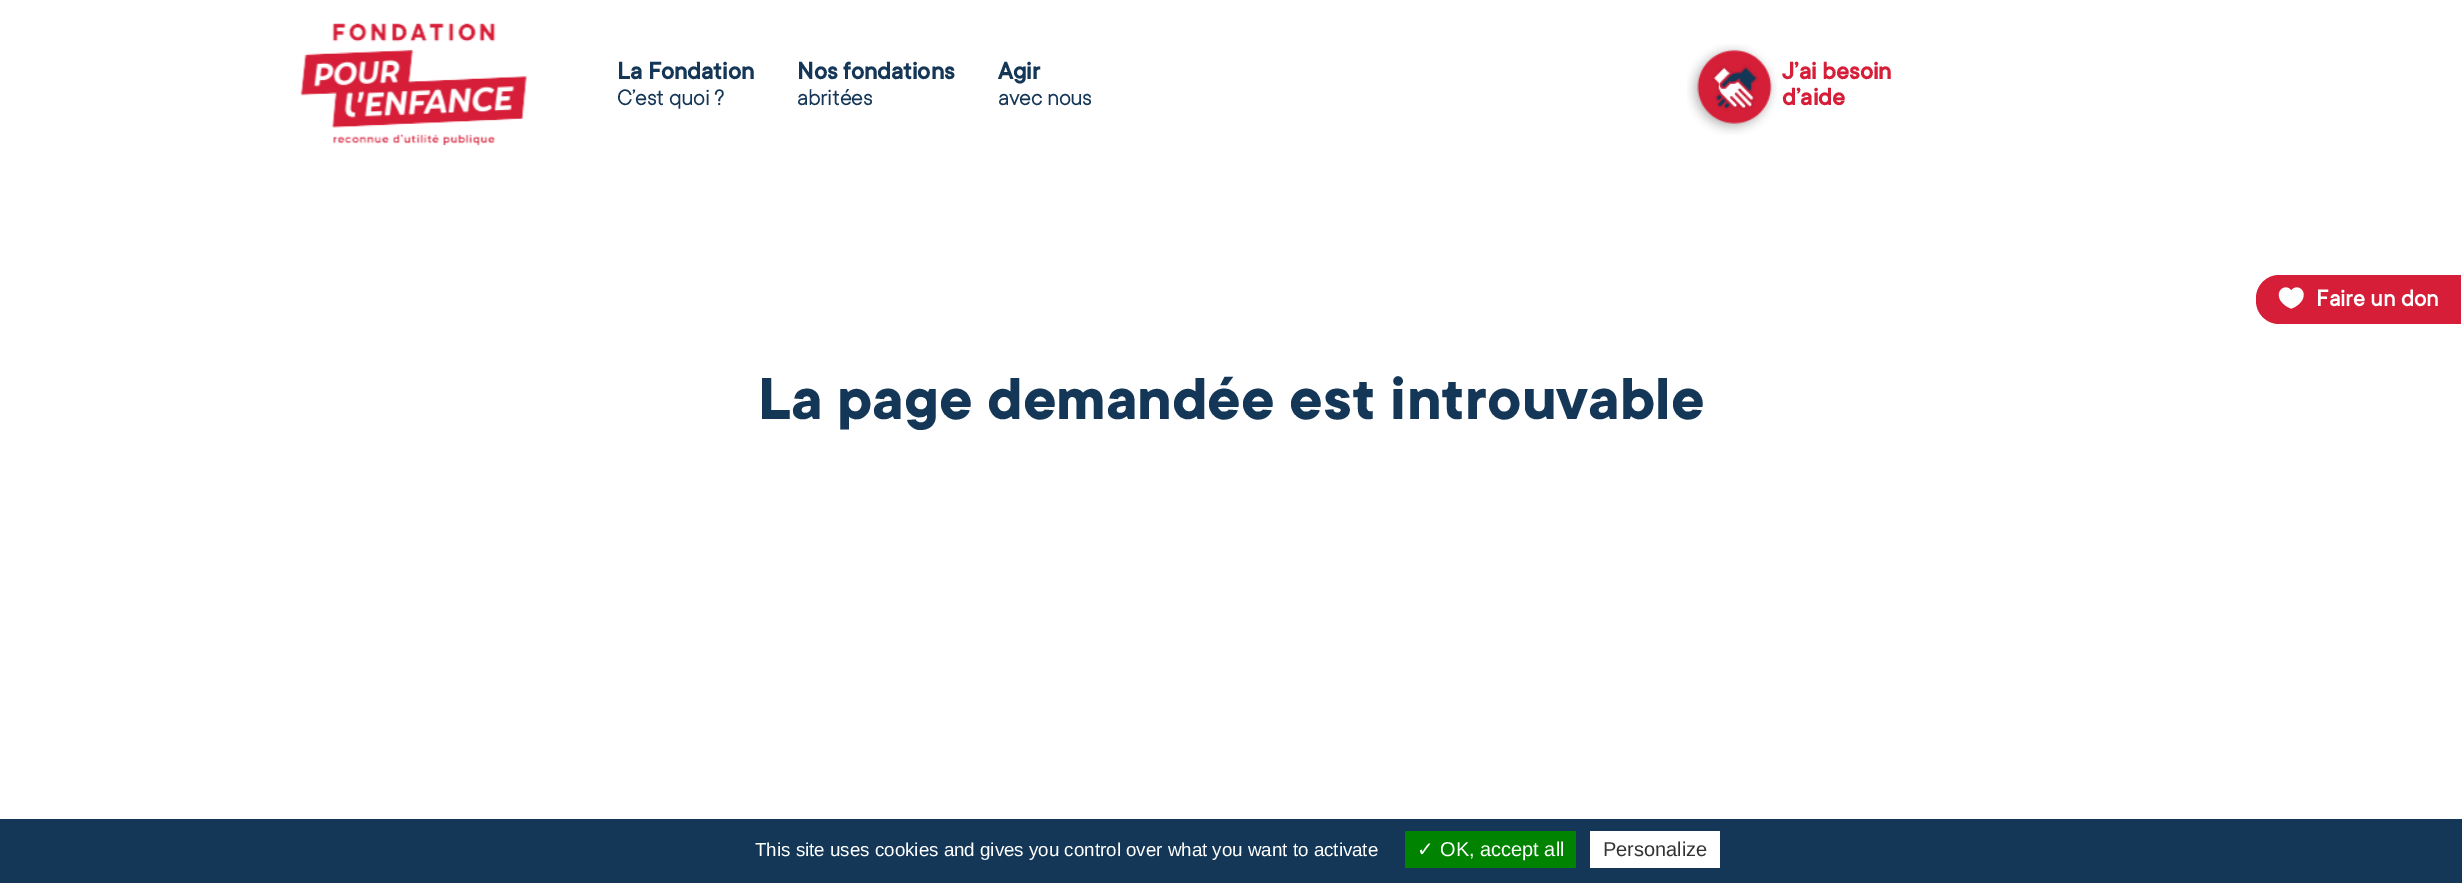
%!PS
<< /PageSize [2462 883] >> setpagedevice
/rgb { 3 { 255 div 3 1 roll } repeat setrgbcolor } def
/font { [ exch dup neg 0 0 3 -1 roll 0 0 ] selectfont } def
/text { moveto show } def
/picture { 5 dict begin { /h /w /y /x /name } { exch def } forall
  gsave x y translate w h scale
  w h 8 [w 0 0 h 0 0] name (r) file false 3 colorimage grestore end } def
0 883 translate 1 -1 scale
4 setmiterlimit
255 255 255 rgb
0 0 2462 883 rectfill
(img_01.rgb) 300 23 227 123 picture
(img_02.rgb) 1687 44 90 91 picture
214 30 56 rgb
2279 275 moveto 182 0 rlineto 0 49 rlineto -182 0 rlineto -12.5 0 -23 -10.5 -23 -23 rcurveto 0 -3 rlineto 0 -12.5 10.5 -23 23 -23 rcurveto closepath fill
(img_03.rgb) 2278 287 26 22 picture
20 55 87 rgb
0 819 2462 64 rectfill
0 131 0 rgb
1405 831 171 37 rectfill
255 255 255 rgb
1590 831 130 37 rectfill
/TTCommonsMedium-Bold 26.25 font
20 55 87 rgb
(La Fondation) 617 79 text
/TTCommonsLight-Bold 23.75 font
(C’est quoi ?) 617 105 text
/TTCommonsMedium-Bold 26.25 font
(Nos fondations) 797 79 text
/TTCommonsLight-Bold 23.75 font
(abritées) 797 105 text
/TTCommonsMedium-Bold 26.25 font
(Agir) 998 79 text
/TTCommonsLight-Bold 23.75 font
(avec nous) 998 105 text
/TTCommonsMedium-Bold 26.25 font
213 30 56 rgb
(J’ai besoin) 1782 79 text
(d’aide) 1782 105 text
/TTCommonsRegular-Bold 25 font
255 255 255 rgb
(Faire un don) 2316 306 text
/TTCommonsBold-Regular 65 font
20 55 87 rgb
(La page demandée est introuvable) 758 419 text
/LiberationSans-Regular 18.75 font
255 255 255 rgb
(This site uses cookies and gives you control over what you want to activate) 755 856 text
/DejaVuSans-Regular 20 font
(✓) 1417 856 text
/LiberationSans-Regular 20 font
(OK, accept all) 1440 856 text
51 51 51 rgb
(Personalize) 1603 856 text
showpage
